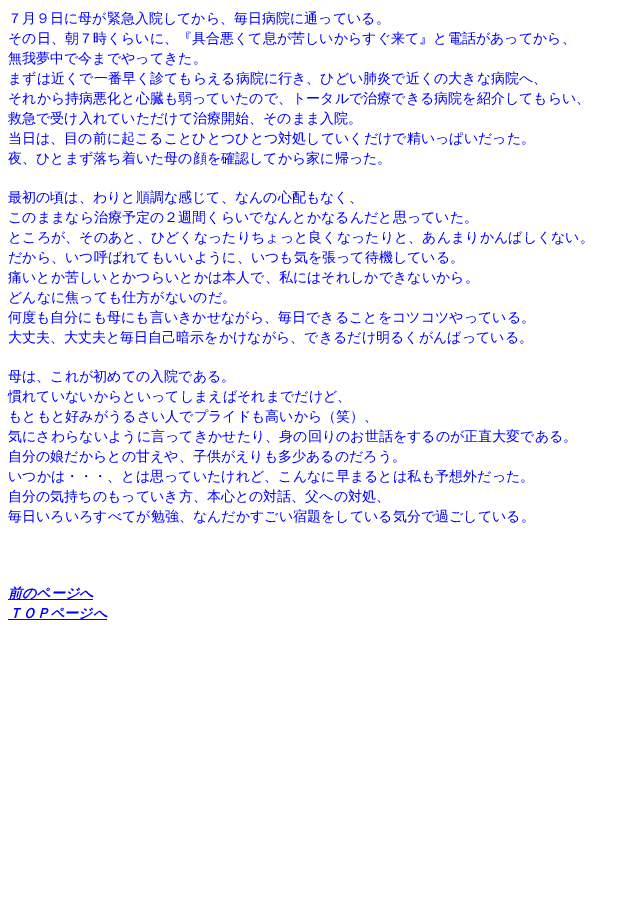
%!PS
<< /PageSize [639 924] >> setpagedevice
/rgb { 3 { 255 div 3 1 roll } repeat setrgbcolor } def
/font { [ exch dup neg 0 0 3 -1 roll 0 0 ] selectfont } def
/text { moveto show } def
0 924 translate 1 -1 scale
4 setmiterlimit
255 255 255 rgb
0 0 639 924 rectfill
0 0 255 rgb
8 599 85 1 rectfill
8 619 99 1 rectfill
/WenQuanYiZenHei-Medium 14 font
(７月９日に母が緊急入院してから、毎日病院に通っている。) 8 23 text
(その日、朝７時くらいに、『具合悪くて息が苦しいからすぐ来て』と電話があってから、) 8 43 text
(無我夢中で今までやってきた。) 8 63 text
(まずは近くで一番早く診てもらえる病院に行き、ひどい肺炎で近くの大きな病院へ、) 8 83 text
(それから持病悪化と心臓も弱っていたので、トータルで治療できる病院を紹介してもらい、) 8 103 text
(救急で受け入れていただけて治療開始、そのまま入院。) 8 123 text
(当日は、目の前に起こることひとつひとつ対処していくだけで精いっぱいだった。) 8 143 text
(夜、ひとまず落ち着いた母の顔を確認してから家に帰った。) 8 163 text
(最初の頃は、わりと順調な感じて、なんの心配もなく、) 8 202 text
(このままなら治療予定の２週間くらいでなんとかなるんだと思っていた。) 8 222 text
(ところが、そのあと、ひどくなったりちょっと良くなったりと、あんまりかんばしくない。) 8 242 text
(だから、いつ呼ばれてもいいように、いつも気を張って待機している。) 8 262 text
(痛いとか苦しいとかつらいとかは本人で、私にはそれしかできないから。) 8 282 text
(どんなに焦っても仕方がないのだ。) 8 302 text
(何度も自分にも母にも言いきかせながら、毎日できることをコツコツやっている。) 8 322 text
(大丈夫、大丈夫と毎日自己暗示をかけながら、できるだけ明るくがんばっている。) 8 342 text
(母は、これが初めての入院である。) 8 381 text
(慣れていないからといってしまえばそれまでだけど、) 8 401 text
(もともと好みがうるさい人でプライドも高いから（笑）、) 8 421 text
(気にさわらないように言ってきかせたり、身の回りのお世話をするのが正直大変である。) 8 441 text
(自分の娘だからとの甘えや、子供がえりも多少あるのだろう。) 8 461 text
(いつかは・・・、とは思っていたけれど、こんなに早まるとは私も予想外だった。) 8 481 text
(自分の気持ちのもっていき方、本心との対話、父への対処、) 8 501 text
(毎日いろいろすべてが勉強、なんだかすごい宿題をしている気分で過ごしている。) 8 521 text
/WenQuanYiZenHei-BoldItalic 14 font
(前のページへ) 8 598 text
(ＴＯＰページへ) 8 618 text
showpage
